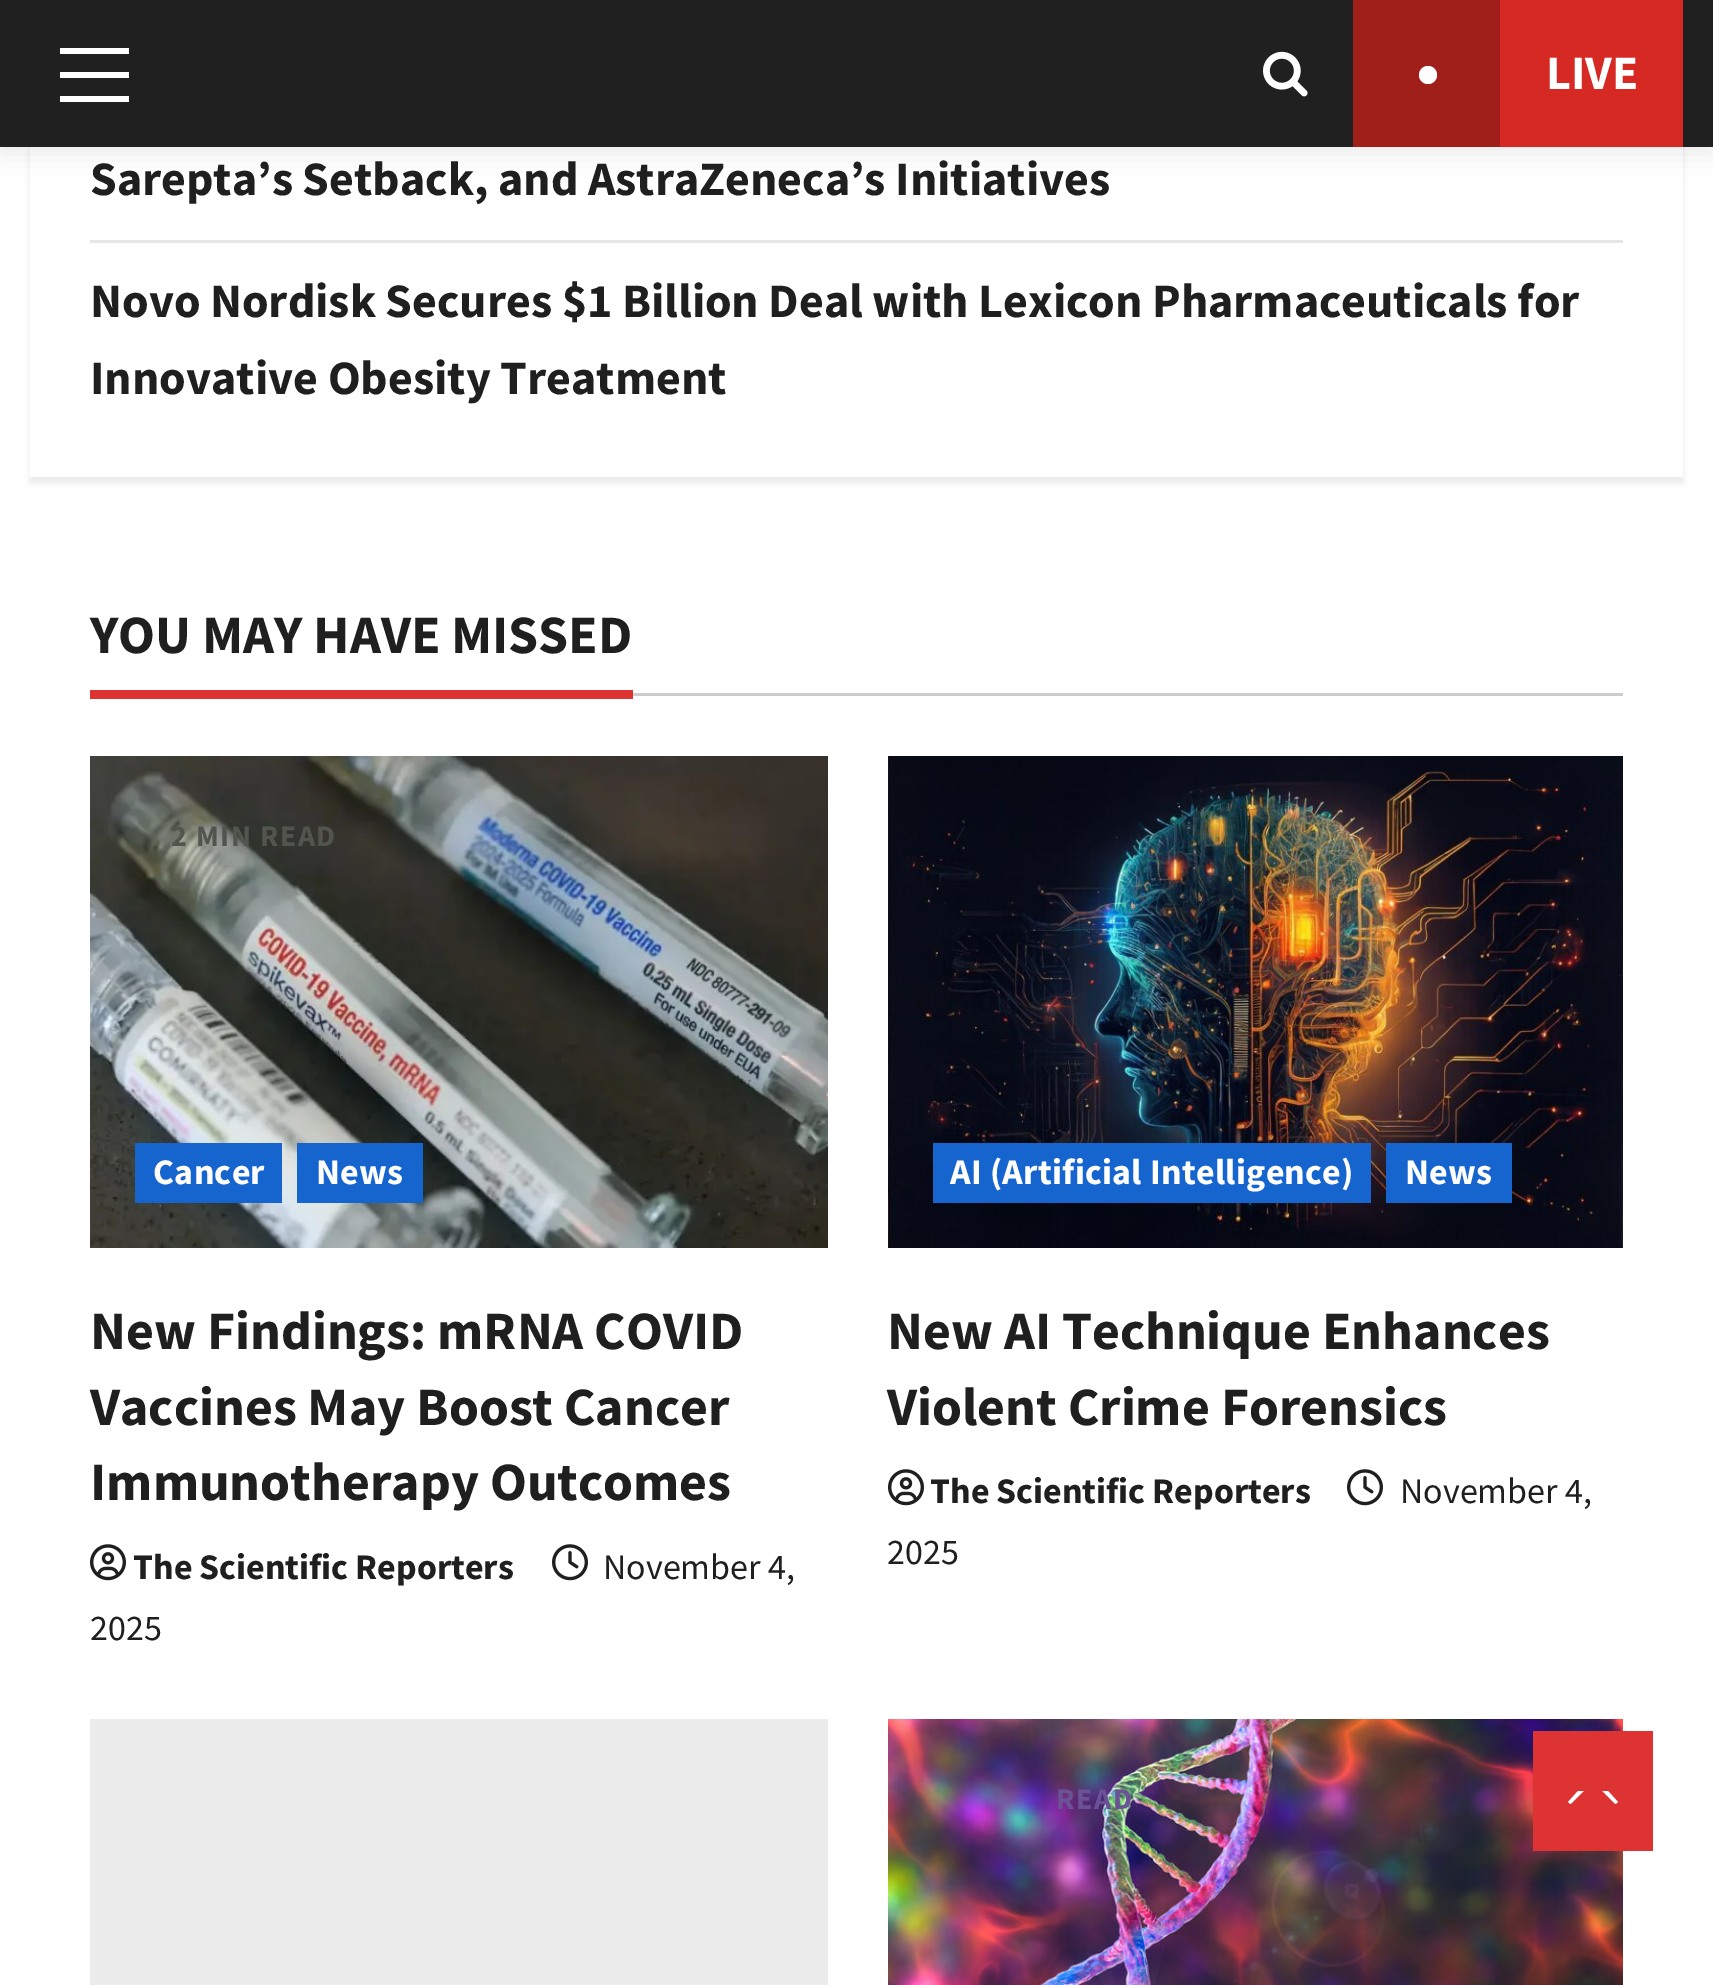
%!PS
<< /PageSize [1713 1985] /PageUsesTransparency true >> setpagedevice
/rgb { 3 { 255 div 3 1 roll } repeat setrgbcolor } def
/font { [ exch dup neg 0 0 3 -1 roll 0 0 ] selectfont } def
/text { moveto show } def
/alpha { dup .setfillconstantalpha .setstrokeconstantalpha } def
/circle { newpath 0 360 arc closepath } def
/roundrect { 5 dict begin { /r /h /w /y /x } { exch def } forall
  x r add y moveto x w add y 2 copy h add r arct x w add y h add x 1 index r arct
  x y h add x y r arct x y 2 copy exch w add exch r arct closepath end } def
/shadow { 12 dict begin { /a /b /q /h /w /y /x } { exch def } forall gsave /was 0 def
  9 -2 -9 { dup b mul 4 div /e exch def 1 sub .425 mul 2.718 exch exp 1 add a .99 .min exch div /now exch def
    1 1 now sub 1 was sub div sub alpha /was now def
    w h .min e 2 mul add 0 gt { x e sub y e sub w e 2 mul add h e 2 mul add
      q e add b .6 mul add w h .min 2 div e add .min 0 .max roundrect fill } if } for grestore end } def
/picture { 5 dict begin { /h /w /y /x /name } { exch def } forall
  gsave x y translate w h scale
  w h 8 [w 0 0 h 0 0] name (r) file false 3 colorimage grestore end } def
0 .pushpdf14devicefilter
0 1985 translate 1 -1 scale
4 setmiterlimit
255 255 255 rgb
0 0 1713 1985 rectfill
0 0 0 rgb
0 6 1713 147 0 12 0.08 shadow
gsave
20 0 moveto 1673 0 rlineto 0 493 rlineto -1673 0 rlineto closepath 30 -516 moveto 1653 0 rlineto 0 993 rlineto -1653 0 rlineto closepath eoclip newpath
30 -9 1653 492 0 3 0.08 shadow
grestore
32 32 32 rgb
0 0 1713 147 rectfill
255 255 255 rgb
60 72 69 6 rectfill
60 48 69 6 rectfill
60 96 69 6 rectfill
(img_01.rgb) 1263 51 45 46 picture
215 41 36 rgb
1500 0 183 147 rectfill
161 31 27 rgb
1353 0 147 147 rectfill
255 255 255 rgb
1428 75 9 circle fill
230 230 230 rgb
90 240 1533 3 rectfill
204 204 204 rgb
633 693 990 3 rectfill
221 51 51 rgb
90 690 543 9 rectfill
(img_02.rgb) 90 756 738 492 picture
22 101 207 rgb
135 1143 147 60 rectfill
297 1143 126 60 rectfill
(img_03.rgb) 90 1544 36 37 picture
(img_04.rgb) 552 1544 36 37 picture
(img_05.rgb) 888 756 735 492 picture
933 1143 438 60 rectfill
1386 1143 126 60 rectfill
(img_03.rgb) 888 1469 36 37 picture
(img_04.rgb) 1347 1469 36 37 picture
236 236 236 rgb
90 1719 738 266 rectfill
(img_06.rgb) 888 1719 735 266 picture
221 51 51 rgb
1533 1731 120 120 rectfill
255 255 255 rgb
1578 1806 moveto 30 0 rlineto 4 0 8 -2 10 -4 rcurveto -10 -11 rlineto -30 0 rlineto -10 11 rlineto 2 2 6 4 10 4 rcurveto closepath fill
221 51 51 rgb
1623 1812 moveto -60 0 rlineto 30 -30 rlineto closepath fill
/SourceSansPro-Bold 48 font
255 255 255 rgb
(LIVE) 1546 89 text
31 31 31 rgb
(Sarepta’s Setback, and AstraZeneca’s Initiatives) 90 195 text
(Novo Nordisk Secures $1 Billion Deal with Lexicon Pharmaceuticals for) 90 317 text
(Innovative Obesity Treatment) 90 394 text
/SourceSansPro-Bold 54 font
(YOU MAY HAVE MISSED) 90 653 text
/SourceSansPro-Bold 30 font
82 84 78 rgb
171 846 moveto 1.5 0 (2 MIN READ) ashow
/SourceSansPro-Bold 36 font
255 255 255 rgb
153 1184 moveto 0.3 0 (Cancer) ashow
316 1184 moveto 0.3 0 (News) ashow
/SourceSansPro-Bold 54 font
31 31 31 rgb
(New Findings: mRNA COVID) 90 1349 text
(Vaccines May Boost Cancer) 90 1425 text
(Immunotherapy Outcomes) 90 1500 text
/SourceSansPro-Bold 36 font
(The Scientific Reporters) 133 1579 text
/SourceSansPro-Regular 36 font
(November 4,) 603 1579 text
(2025) 90 1640 text
/SourceSansPro-Bold 36 font
255 255 255 rgb
950 1184 moveto 0.3 0 (AI \(Artificial Intelligence\)) ashow
1405 1184 moveto 0.3 0 (News) ashow
/SourceSansPro-Bold 54 font
31 31 31 rgb
(New AI Technique Enhances) 887 1349 text
(Violent Crime Forensics) 887 1425 text
/SourceSansPro-Bold 36 font
(The Scientific Reporters) 930 1503 text
/SourceSansPro-Regular 36 font
(November 4,) 1400 1503 text
(2025) 887 1564 text
/SourceSansPro-Bold 30 font
107 81 150 rgb
1056 1809 moveto 1.5 0 (READ) ashow
.poppdf14devicefilter showpage
